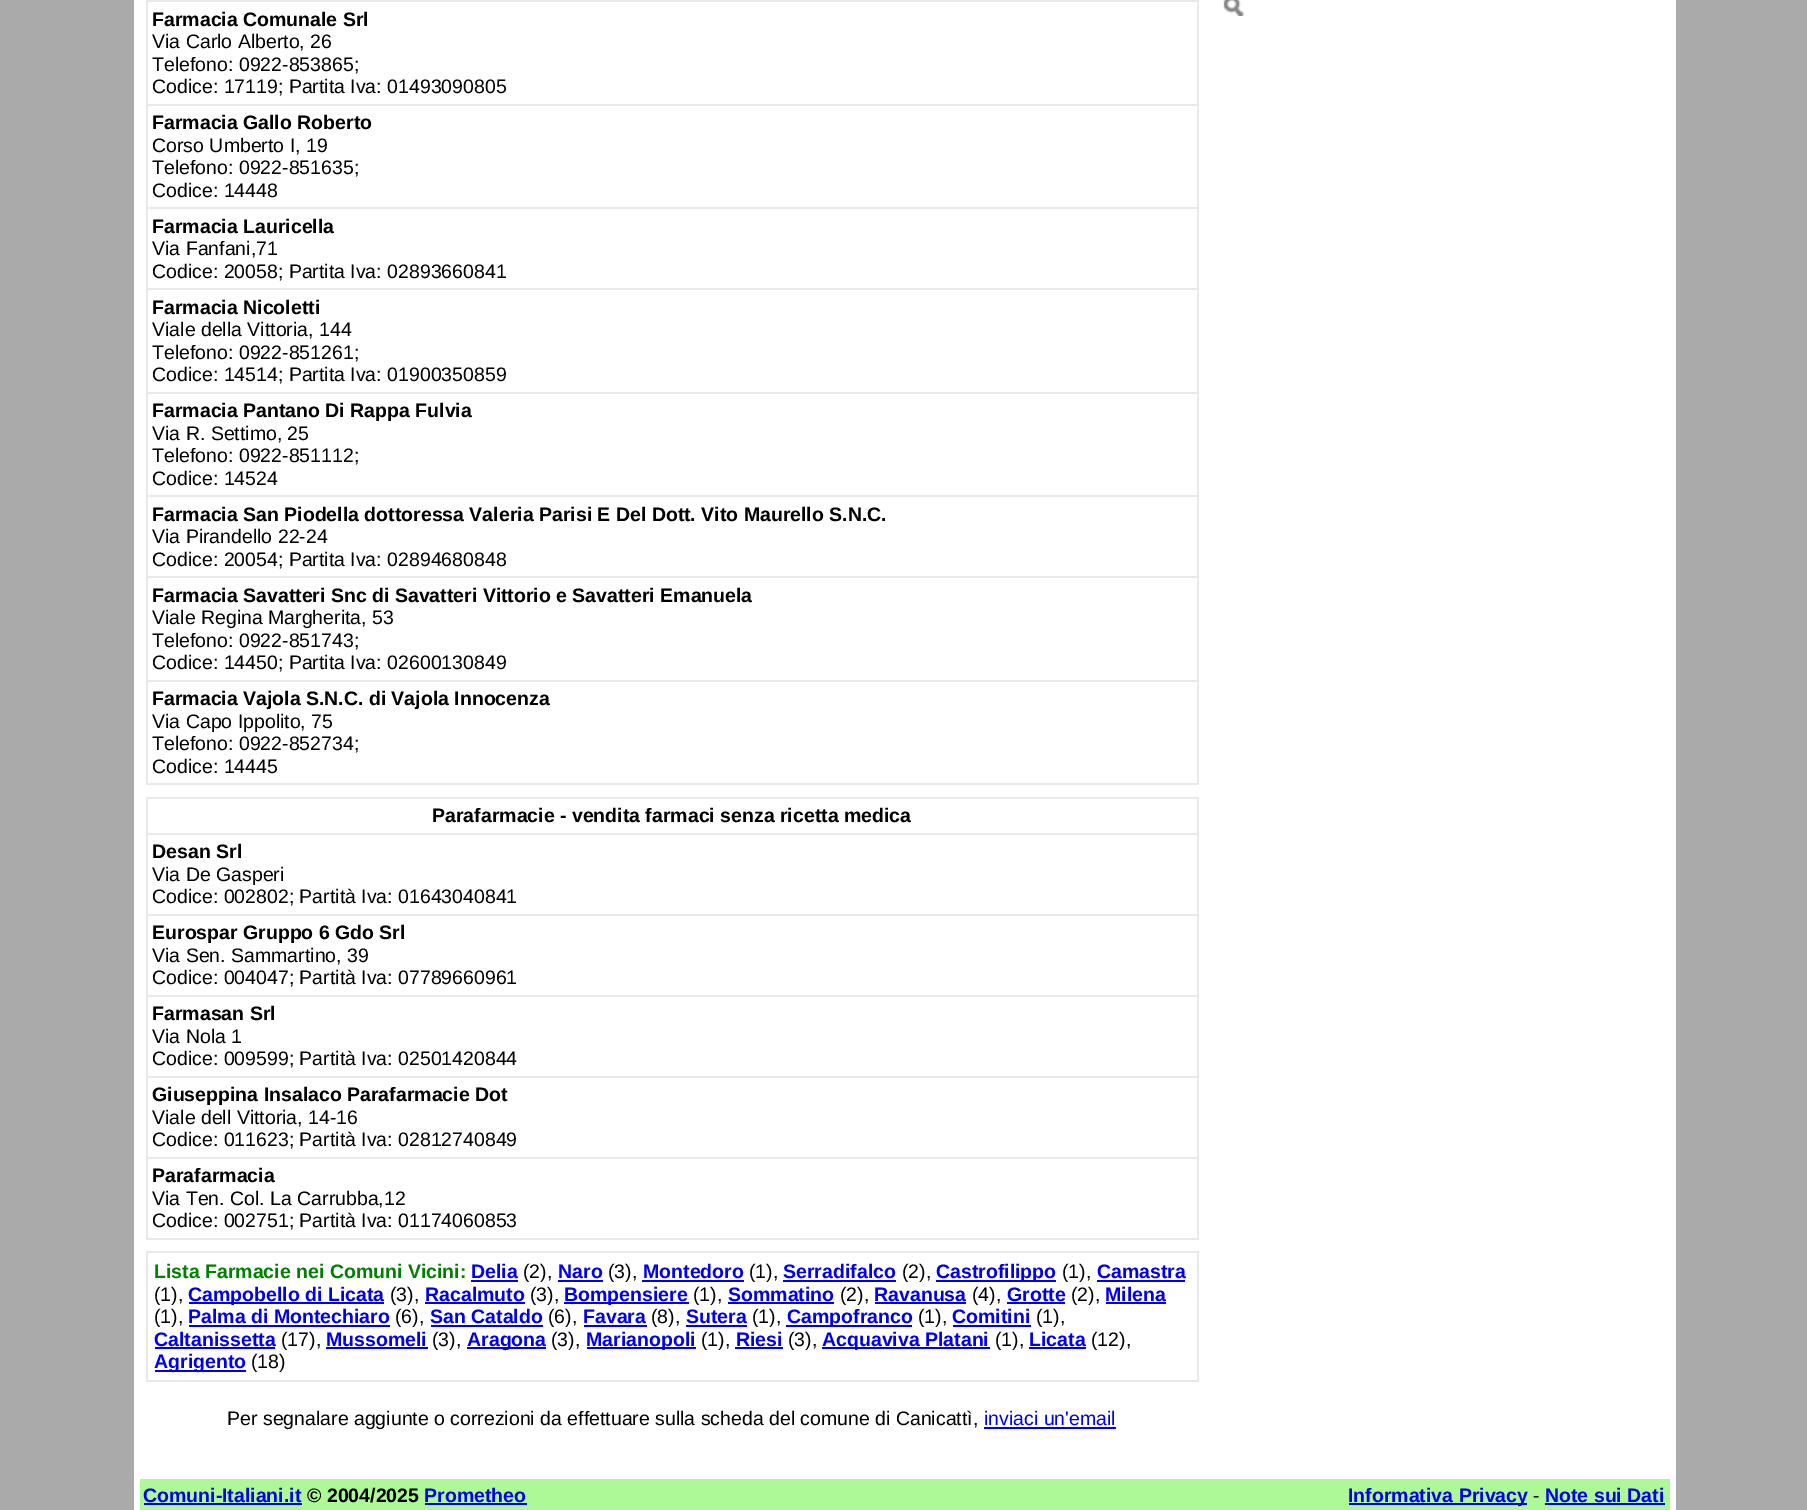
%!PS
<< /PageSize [1807 1510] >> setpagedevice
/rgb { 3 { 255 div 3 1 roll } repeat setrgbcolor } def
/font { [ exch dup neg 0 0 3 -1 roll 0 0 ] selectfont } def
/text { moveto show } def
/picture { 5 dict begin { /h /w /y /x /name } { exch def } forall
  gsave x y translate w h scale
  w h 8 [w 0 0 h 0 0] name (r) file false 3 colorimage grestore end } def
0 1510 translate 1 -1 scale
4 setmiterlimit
170 170 170 rgb
0 0 1807 1510 rectfill
255 255 255 rgb
134 0 1542 1510 rectfill
(img_01.rgb) 1223 0 21 16 picture
233 233 233 rgb
1197 0 2 785 rectfill
146 783 1053 2 rectfill
146 0 2 785 rectfill
146 0 1053 2 rectfill
146 104 1053 2 rectfill
146 207 1053 2 rectfill
146 288 1053 2 rectfill
146 392 1053 2 rectfill
146 495 1053 2 rectfill
146 576 1053 2 rectfill
146 680 1053 2 rectfill
146 797 1053 2 rectfill
1197 797 2 442 rectfill
146 1238 1053 2 rectfill
146 797 2 442 rectfill
146 833 1053 2 rectfill
146 914 1053 2 rectfill
146 995 1053 2 rectfill
146 1076 1053 2 rectfill
146 1157 1053 2 rectfill
146 1251 1053 2 rectfill
1197 1251 2 131 rectfill
146 1380 1053 2 rectfill
146 1251 2 131 rectfill
0 0 238 rgb
471 1280 47 2 rectfill
558 1280 45 2 rectfill
642 1280 102 2 rectfill
783 1280 113 2 rectfill
936 1280 120 2 rectfill
1097 1280 88 2 rectfill
189 1302 195 2 rectfill
425 1302 100 2 rectfill
564 1302 125 2 rectfill
728 1302 106 2 rectfill
875 1302 91 2 rectfill
1007 1302 58 2 rectfill
1106 1302 60 2 rectfill
189 1325 201 2 rectfill
431 1325 112 2 rectfill
584 1325 63 2 rectfill
686 1325 61 2 rectfill
786 1325 126 2 rectfill
953 1325 78 2 rectfill
155 1347 120 2 rectfill
326 1347 102 2 rectfill
467 1347 79 2 rectfill
587 1347 109 2 rectfill
735 1347 48 2 rectfill
822 1347 168 2 rectfill
1029 1347 57 2 rectfill
155 1370 91 2 rectfill
984 1427 132 2 rectfill
173 249 151 rgb
140 1479 1530 31 rectfill
0 0 238 rgb
144 1503 158 2 rectfill
425 1503 102 2 rectfill
1349 1503 178 2 rectfill
1545 1503 120 2 rectfill
/LiberationSans-Bold 19.5 font
0 0 0 rgb
(Farmacia Comunale Srl) 152 26 text
/LiberationSans-Regular 19.5 font
(Via Carlo Alberto, 26) 152 48 text
(Telefono: 0922-853865;) 152 71 text
(Codice: 17119; Partita Iva: 01493090805) 152 93 text
/LiberationSans-Bold 19.5 font
(Farmacia Gallo Roberto) 152 129 text
/LiberationSans-Regular 19.5 font
(Corso Umberto I, 19) 152 152 text
(Telefono: 0922-851635;) 152 174 text
(Codice: 14448) 152 197 text
/LiberationSans-Bold 19.5 font
(Farmacia Lauricella) 152 233 text
/LiberationSans-Regular 19.5 font
(Via Fanfani,71) 152 255 text
(Codice: 20058; Partita Iva: 02893660841) 152 278 text
/LiberationSans-Bold 19.5 font
(Farmacia Nicoletti) 152 314 text
/LiberationSans-Regular 19.5 font
(Viale della Vittoria, 144) 152 336 text
(Telefono: 0922-851261;) 152 359 text
(Codice: 14514; Partita Iva: 01900350859) 152 381 text
/LiberationSans-Bold 19.5 font
(Farmacia Pantano Di Rappa Fulvia) 152 417 text
/LiberationSans-Regular 19.5 font
(Via R. Settimo, 25) 152 440 text
(Telefono: 0922-851112;) 152 462 text
(Codice: 14524) 152 485 text
/LiberationSans-Bold 19.5 font
(Farmacia San Piodella dottoressa Valeria Parisi E Del Dott. Vito Maurello S.N.C.) 152 521 text
/LiberationSans-Regular 19.5 font
(Via Pirandello 22-24) 152 543 text
(Codice: 20054; Partita Iva: 02894680848) 152 566 text
/LiberationSans-Bold 19.5 font
(Farmacia Savatteri Snc di Savatteri Vittorio e Savatteri Emanuela) 152 602 text
/LiberationSans-Regular 19.5 font
(Viale Regina Margherita, 53) 152 624 text
(Telefono: 0922-851743;) 152 647 text
(Codice: 14450; Partita Iva: 02600130849) 152 669 text
/LiberationSans-Bold 19.5 font
(Farmacia Vajola S.N.C. di Vajola Innocenza) 152 705 text
/LiberationSans-Regular 19.5 font
(Via Capo Ippolito, 75) 152 728 text
(Telefono: 0922-852734;) 152 750 text
(Codice: 14445) 152 773 text
/LiberationSans-Bold 19.5 font
(Parafarmacie - vendita farmaci senza ricetta medica) 432 822 text
(Desan Srl) 152 858 text
/LiberationSans-Regular 19.5 font
(Via De Gasperi) 152 881 text
(Codice: 002802; Partità Iva: 01643040841) 152 903 text
/LiberationSans-Bold 19.5 font
(Eurospar Gruppo 6 Gdo Srl) 152 939 text
/LiberationSans-Regular 19.5 font
(Via Sen. Sammartino, 39) 152 962 text
(Codice: 004047; Partità Iva: 07789660961) 152 984 text
/LiberationSans-Bold 19.5 font
(Farmasan Srl) 152 1020 text
/LiberationSans-Regular 19.5 font
(Via Nola 1) 152 1043 text
(Codice: 009599; Partità Iva: 02501420844) 152 1065 text
/LiberationSans-Bold 19.5 font
(Giuseppina Insalaco Parafarmacie Dot) 152 1101 text
/LiberationSans-Regular 19.5 font
(Viale dell Vittoria, 14-16) 152 1124 text
(Codice: 011623; Partità Iva: 02812740849) 152 1146 text
/LiberationSans-Bold 19.5 font
(Parafarmacia) 152 1182 text
/LiberationSans-Regular 19.5 font
(Via Ten. Col. La Carrubba,12) 152 1205 text
(Codice: 002751; Partità Iva: 01174060853) 152 1227 text
/LiberationSans-Bold 19.5 font
0 128 0 rgb
(Lista Farmacie nei Comuni Vicini:) 154 1278 text
0 0 238 rgb
(Delia) 471 1278 text
/LiberationSans-Regular 19.5 font
0 0 0 rgb
(\(2\),) 523 1278 text
/LiberationSans-Bold 19.5 font
0 0 238 rgb
(Naro) 558 1278 text
/LiberationSans-Regular 19.5 font
0 0 0 rgb
(\(3\),) 608 1278 text
/LiberationSans-Bold 19.5 font
0 0 238 rgb
(Montedoro) 643 1278 text
/LiberationSans-Regular 19.5 font
0 0 0 rgb
(\(1\),) 749 1278 text
/LiberationSans-Bold 19.5 font
0 0 238 rgb
(Serradifalco) 783 1278 text
/LiberationSans-Regular 19.5 font
0 0 0 rgb
(\(2\),) 902 1278 text
/LiberationSans-Bold 19.5 font
0 0 238 rgb
(Castrofilippo) 936 1278 text
/LiberationSans-Regular 19.5 font
0 0 0 rgb
(\(1\),) 1062 1278 text
/LiberationSans-Bold 19.5 font
0 0 238 rgb
(Camastra) 1097 1278 text
/LiberationSans-Regular 19.5 font
0 0 0 rgb
(\(1\),) 154 1301 text
/LiberationSans-Bold 19.5 font
0 0 238 rgb
(Campobello di Licata) 188 1301 text
/LiberationSans-Regular 19.5 font
0 0 0 rgb
(\(3\),) 390 1301 text
/LiberationSans-Bold 19.5 font
0 0 238 rgb
(Racalmuto) 425 1301 text
/LiberationSans-Regular 19.5 font
0 0 0 rgb
(\(3\),) 530 1301 text
/LiberationSans-Bold 19.5 font
0 0 238 rgb
(Bompensiere) 564 1301 text
/LiberationSans-Regular 19.5 font
0 0 0 rgb
(\(1\),) 693 1301 text
/LiberationSans-Bold 19.5 font
0 0 238 rgb
(Sommatino) 728 1301 text
/LiberationSans-Regular 19.5 font
0 0 0 rgb
(\(2\),) 840 1301 text
/LiberationSans-Bold 19.5 font
0 0 238 rgb
(Ravanusa) 874 1301 text
/LiberationSans-Regular 19.5 font
0 0 0 rgb
(\(4\),) 972 1301 text
/LiberationSans-Bold 19.5 font
0 0 238 rgb
(Grotte) 1007 1301 text
/LiberationSans-Regular 19.5 font
0 0 0 rgb
(\(2\),) 1071 1301 text
/LiberationSans-Bold 19.5 font
0 0 238 rgb
(Milena) 1105 1301 text
/LiberationSans-Regular 19.5 font
0 0 0 rgb
(\(1\),) 154 1323 text
/LiberationSans-Bold 19.5 font
0 0 238 rgb
(Palma di Montechiaro) 188 1323 text
/LiberationSans-Regular 19.5 font
0 0 0 rgb
(\(6\),) 395 1323 text
/LiberationSans-Bold 19.5 font
0 0 238 rgb
(San Cataldo) 430 1323 text
/LiberationSans-Regular 19.5 font
0 0 0 rgb
(\(6\),) 548 1323 text
/LiberationSans-Bold 19.5 font
0 0 238 rgb
(Favara) 583 1323 text
/LiberationSans-Regular 19.5 font
0 0 0 rgb
(\(8\),) 651 1323 text
/LiberationSans-Bold 19.5 font
0 0 238 rgb
(Sutera) 686 1323 text
/LiberationSans-Regular 19.5 font
0 0 0 rgb
(\(1\),) 752 1323 text
/LiberationSans-Bold 19.5 font
0 0 238 rgb
(Campofranco) 787 1323 text
/LiberationSans-Regular 19.5 font
0 0 0 rgb
(\(1\),) 918 1323 text
/LiberationSans-Bold 19.5 font
0 0 238 rgb
(Comitini) 952 1323 text
/LiberationSans-Regular 19.5 font
0 0 0 rgb
(\(1\),) 1036 1323 text
/LiberationSans-Bold 19.5 font
0 0 238 rgb
(Caltanissetta) 154 1346 text
/LiberationSans-Regular 19.5 font
0 0 0 rgb
(\(17\),) 281 1346 text
/LiberationSans-Bold 19.5 font
0 0 238 rgb
(Mussomeli) 326 1346 text
/LiberationSans-Regular 19.5 font
0 0 0 rgb
(\(3\),) 432 1346 text
/LiberationSans-Bold 19.5 font
0 0 238 rgb
(Aragona) 467 1346 text
/LiberationSans-Regular 19.5 font
0 0 0 rgb
(\(3\),) 551 1346 text
/LiberationSans-Bold 19.5 font
0 0 238 rgb
(Marianopoli) 586 1346 text
/LiberationSans-Regular 19.5 font
0 0 0 rgb
(\(1\),) 701 1346 text
/LiberationSans-Bold 19.5 font
0 0 238 rgb
(Riesi) 736 1346 text
/LiberationSans-Regular 19.5 font
0 0 0 rgb
(\(3\),) 788 1346 text
/LiberationSans-Bold 19.5 font
0 0 238 rgb
(Acquaviva Platani) 822 1346 text
/LiberationSans-Regular 19.5 font
0 0 0 rgb
(\(1\),) 995 1346 text
/LiberationSans-Bold 19.5 font
0 0 238 rgb
(Licata) 1029 1346 text
/LiberationSans-Regular 19.5 font
0 0 0 rgb
(\(12\),) 1091 1346 text
/LiberationSans-Bold 19.5 font
0 0 238 rgb
(Agrigento) 154 1368 text
/LiberationSans-Regular 19.5 font
0 0 0 rgb
(\(18\)) 251 1368 text
(Per segnalare aggiunte o correzioni da effettuare sulla scheda del comune di Canicattì,) 227 1425 text
0 0 238 rgb
(inviaci un'email) 984 1425 text
/LiberationSans-Bold 19.5 font
(Comuni-Italiani.it) 143 1502 text
0 0 0 rgb
(© 2004/2025) 307 1502 text
0 0 238 rgb
(Prometheo) 424 1502 text
(Informativa Privacy) 1348 1502 text
/LiberationSans-Regular 19.5 font
0 0 0 rgb
(-) 1533 1502 text
/LiberationSans-Bold 19.5 font
0 0 238 rgb
(Note sui Dati) 1545 1502 text
showpage
